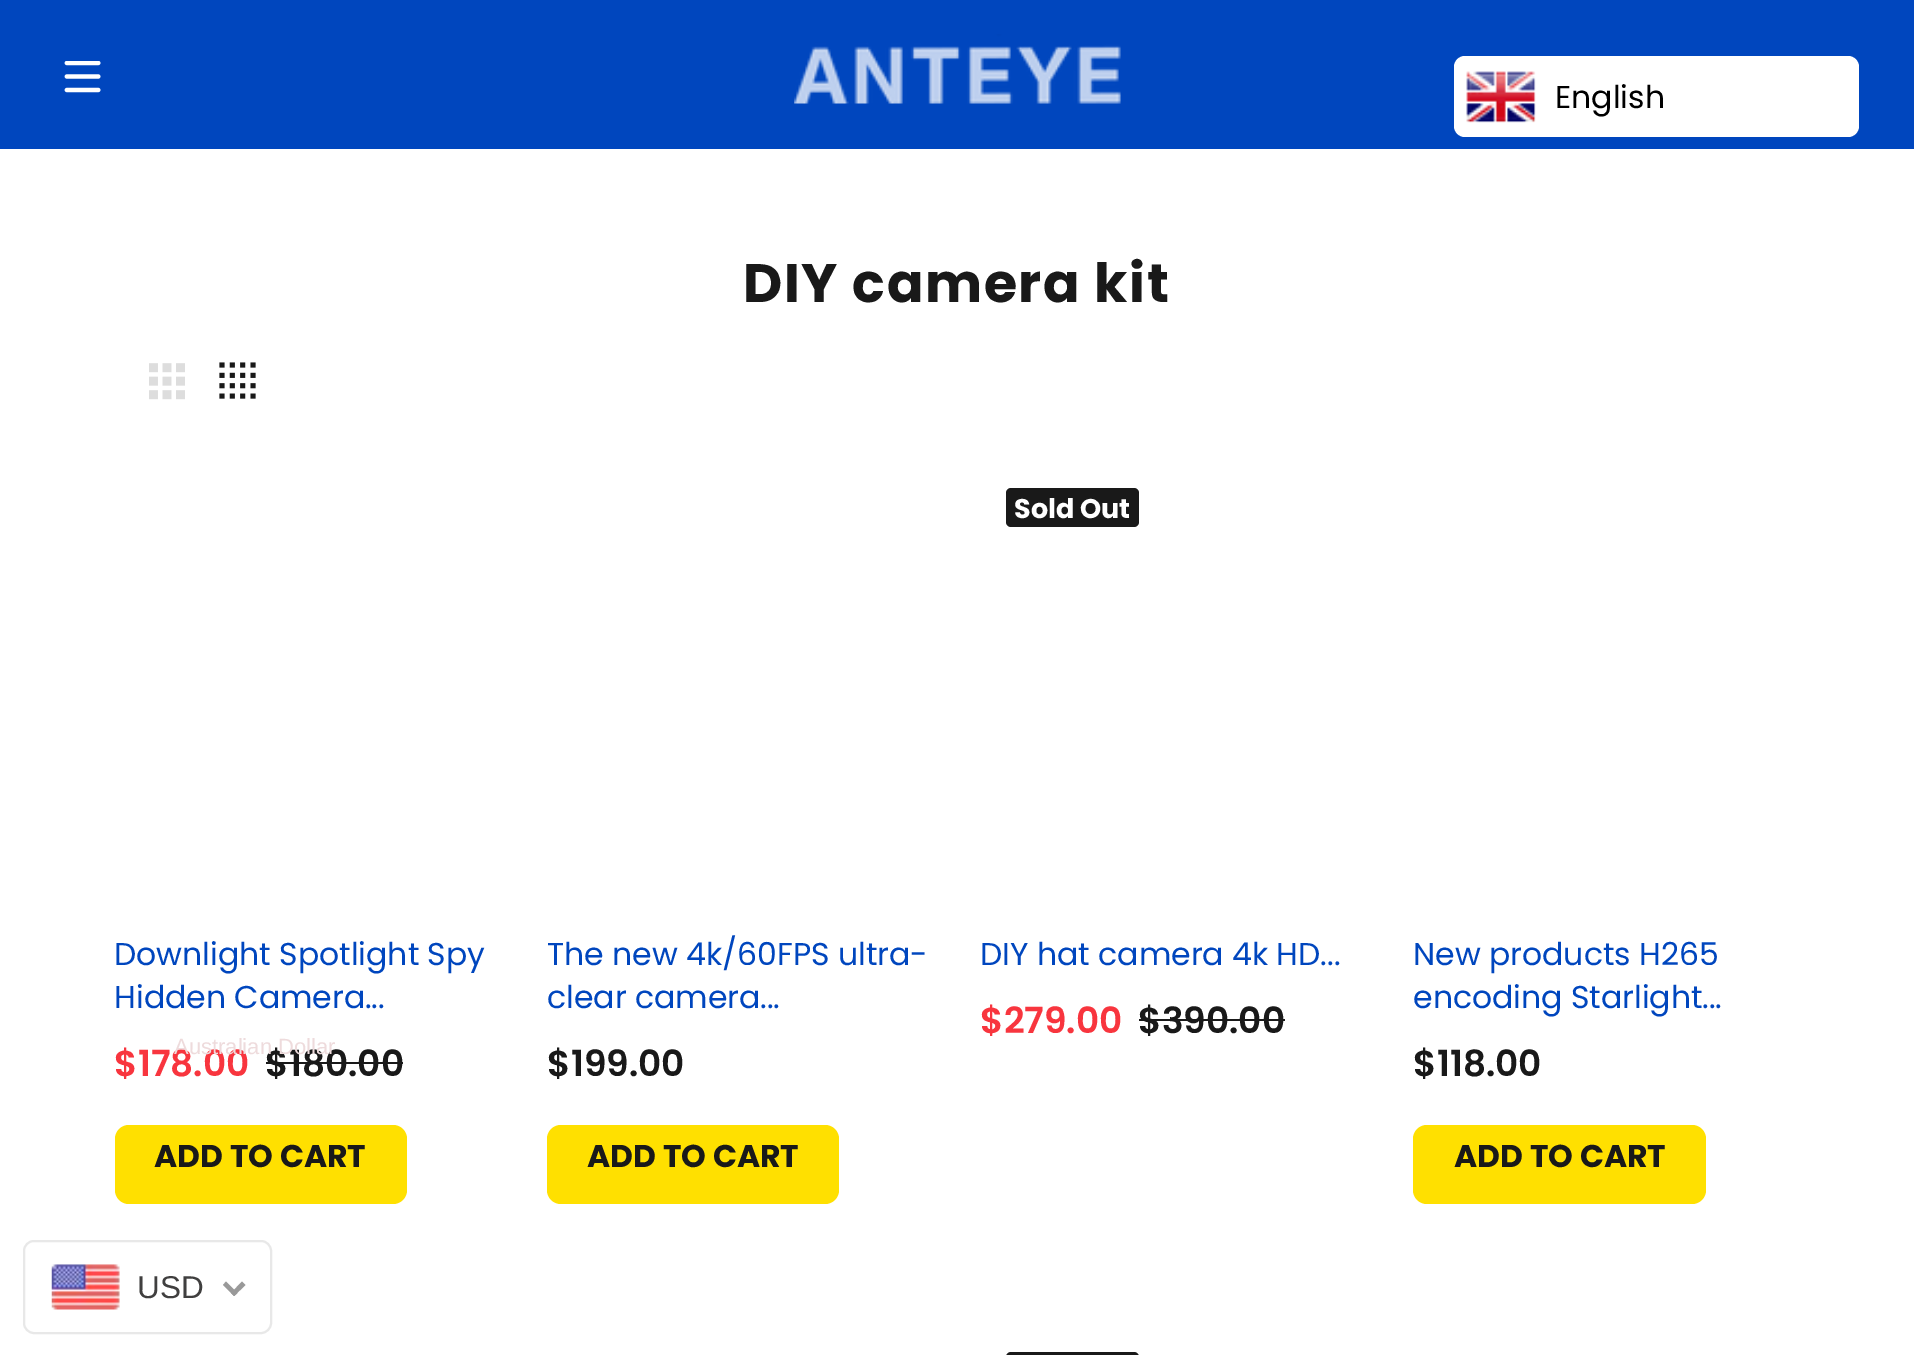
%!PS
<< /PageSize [1914 1355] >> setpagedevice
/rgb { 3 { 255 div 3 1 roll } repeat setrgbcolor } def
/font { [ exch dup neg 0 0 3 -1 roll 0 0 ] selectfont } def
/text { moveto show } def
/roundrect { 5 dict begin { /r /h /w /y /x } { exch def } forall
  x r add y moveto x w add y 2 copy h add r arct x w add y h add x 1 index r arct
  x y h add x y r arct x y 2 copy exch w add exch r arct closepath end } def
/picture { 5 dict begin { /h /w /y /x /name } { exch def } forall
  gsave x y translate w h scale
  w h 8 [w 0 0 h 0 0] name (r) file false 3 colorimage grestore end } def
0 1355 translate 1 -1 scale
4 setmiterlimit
255 255 255 rgb
0 0 1914 1355 rectfill
0 70 190 rgb
0 0 1914 149 rectfill
(img_01.rgb) 64 61 37 32 picture
(img_02.rgb) 794 34 327 70 picture
255 255 255 rgb
1454 56 405 81 11 roundrect fill
(img_03.rgb) 1466 71 70 52 picture
(img_04.rgb) 149 363 36 37 picture
(img_05.rgb) 219 362 37 37 picture
25 25 25 rgb
266 1062 137 2 rectfill
255 224 0 rgb
115 1125 292 79 14 roundrect fill
547 1125 292 79 14 roundrect fill
25 25 25 rgb
1006 488 133 39 5 roundrect fill
1139 1019 146 2 rectfill
255 224 0 rgb
1413 1125 293 79 14 roundrect fill
25 25 25 rgb
1006 1352 133 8 5 roundrect fill
232 232 232 rgb
2 setlinewidth
24 1241 247 92 10 roundrect stroke
(img_06.rgb) 51 1264 69 46 picture
153 153 153 rgb
242 1281.5 moveto 3.5 3.5 rlineto -11.5 11 rlineto -3 -3 rlineto closepath fill
226 1281.5 moveto 11.5 11.5 rlineto -3.5 3 rlineto -11 -11 rlineto closepath fill
/Poppins-Regular 31.5 font
0 0 0 rgb
(English) 1555 108 text
/Poppins-Bold 54 font
25 25 25 rgb
743 302 moveto 1.6 0 (DIY camera kit) ashow
/Poppins-Regular 31.5 font
0 70 190 rgb
(Downlight Spotlight Spy) 114 965 text
(Hidden Camera...) 114 1008 text
/Poppins-SemiBold 36 font
248 53 62 rgb
($178.00) 114 1076 text
25 25 25 rgb
($180.00) 265 1076 text
/Poppins-Bold 31.5 font
(ADD TO CART) 154 1167 text
/Poppins-Regular 31.5 font
0 70 190 rgb
(The new 4k/60FPS ultra-) 547 965 text
(clear camera...) 547 1008 text
/Poppins-SemiBold 36 font
25 25 25 rgb
($199.00) 547 1076 text
/Poppins-Bold 31.5 font
(ADD TO CART) 587 1167 text
/Poppins-Bold 27 font
255 255 255 rgb
(Sold Out) 1014 518 text
/Poppins-Regular 31.5 font
0 70 190 rgb
(DIY hat camera 4k HD...) 980 965 text
/Poppins-SemiBold 36 font
248 53 62 rgb
($279.00) 980 1033 text
25 25 25 rgb
($390.00) 1138 1033 text
/Poppins-Regular 31.5 font
0 70 190 rgb
(New products H265) 1413 965 text
(encoding Starlight...) 1413 1008 text
/Poppins-SemiBold 36 font
25 25 25 rgb
($118.00) 1413 1076 text
/Poppins-Bold 31.5 font
(ADD TO CART) 1454 1167 text
/LiberationSans-Regular 22 font
238 219 220 rgb
(Australian Dollar) 174 1054 text
/LiberationSans-Regular 31.5 font
64 63 63 rgb
(USD) 137 1298 text
showpage
